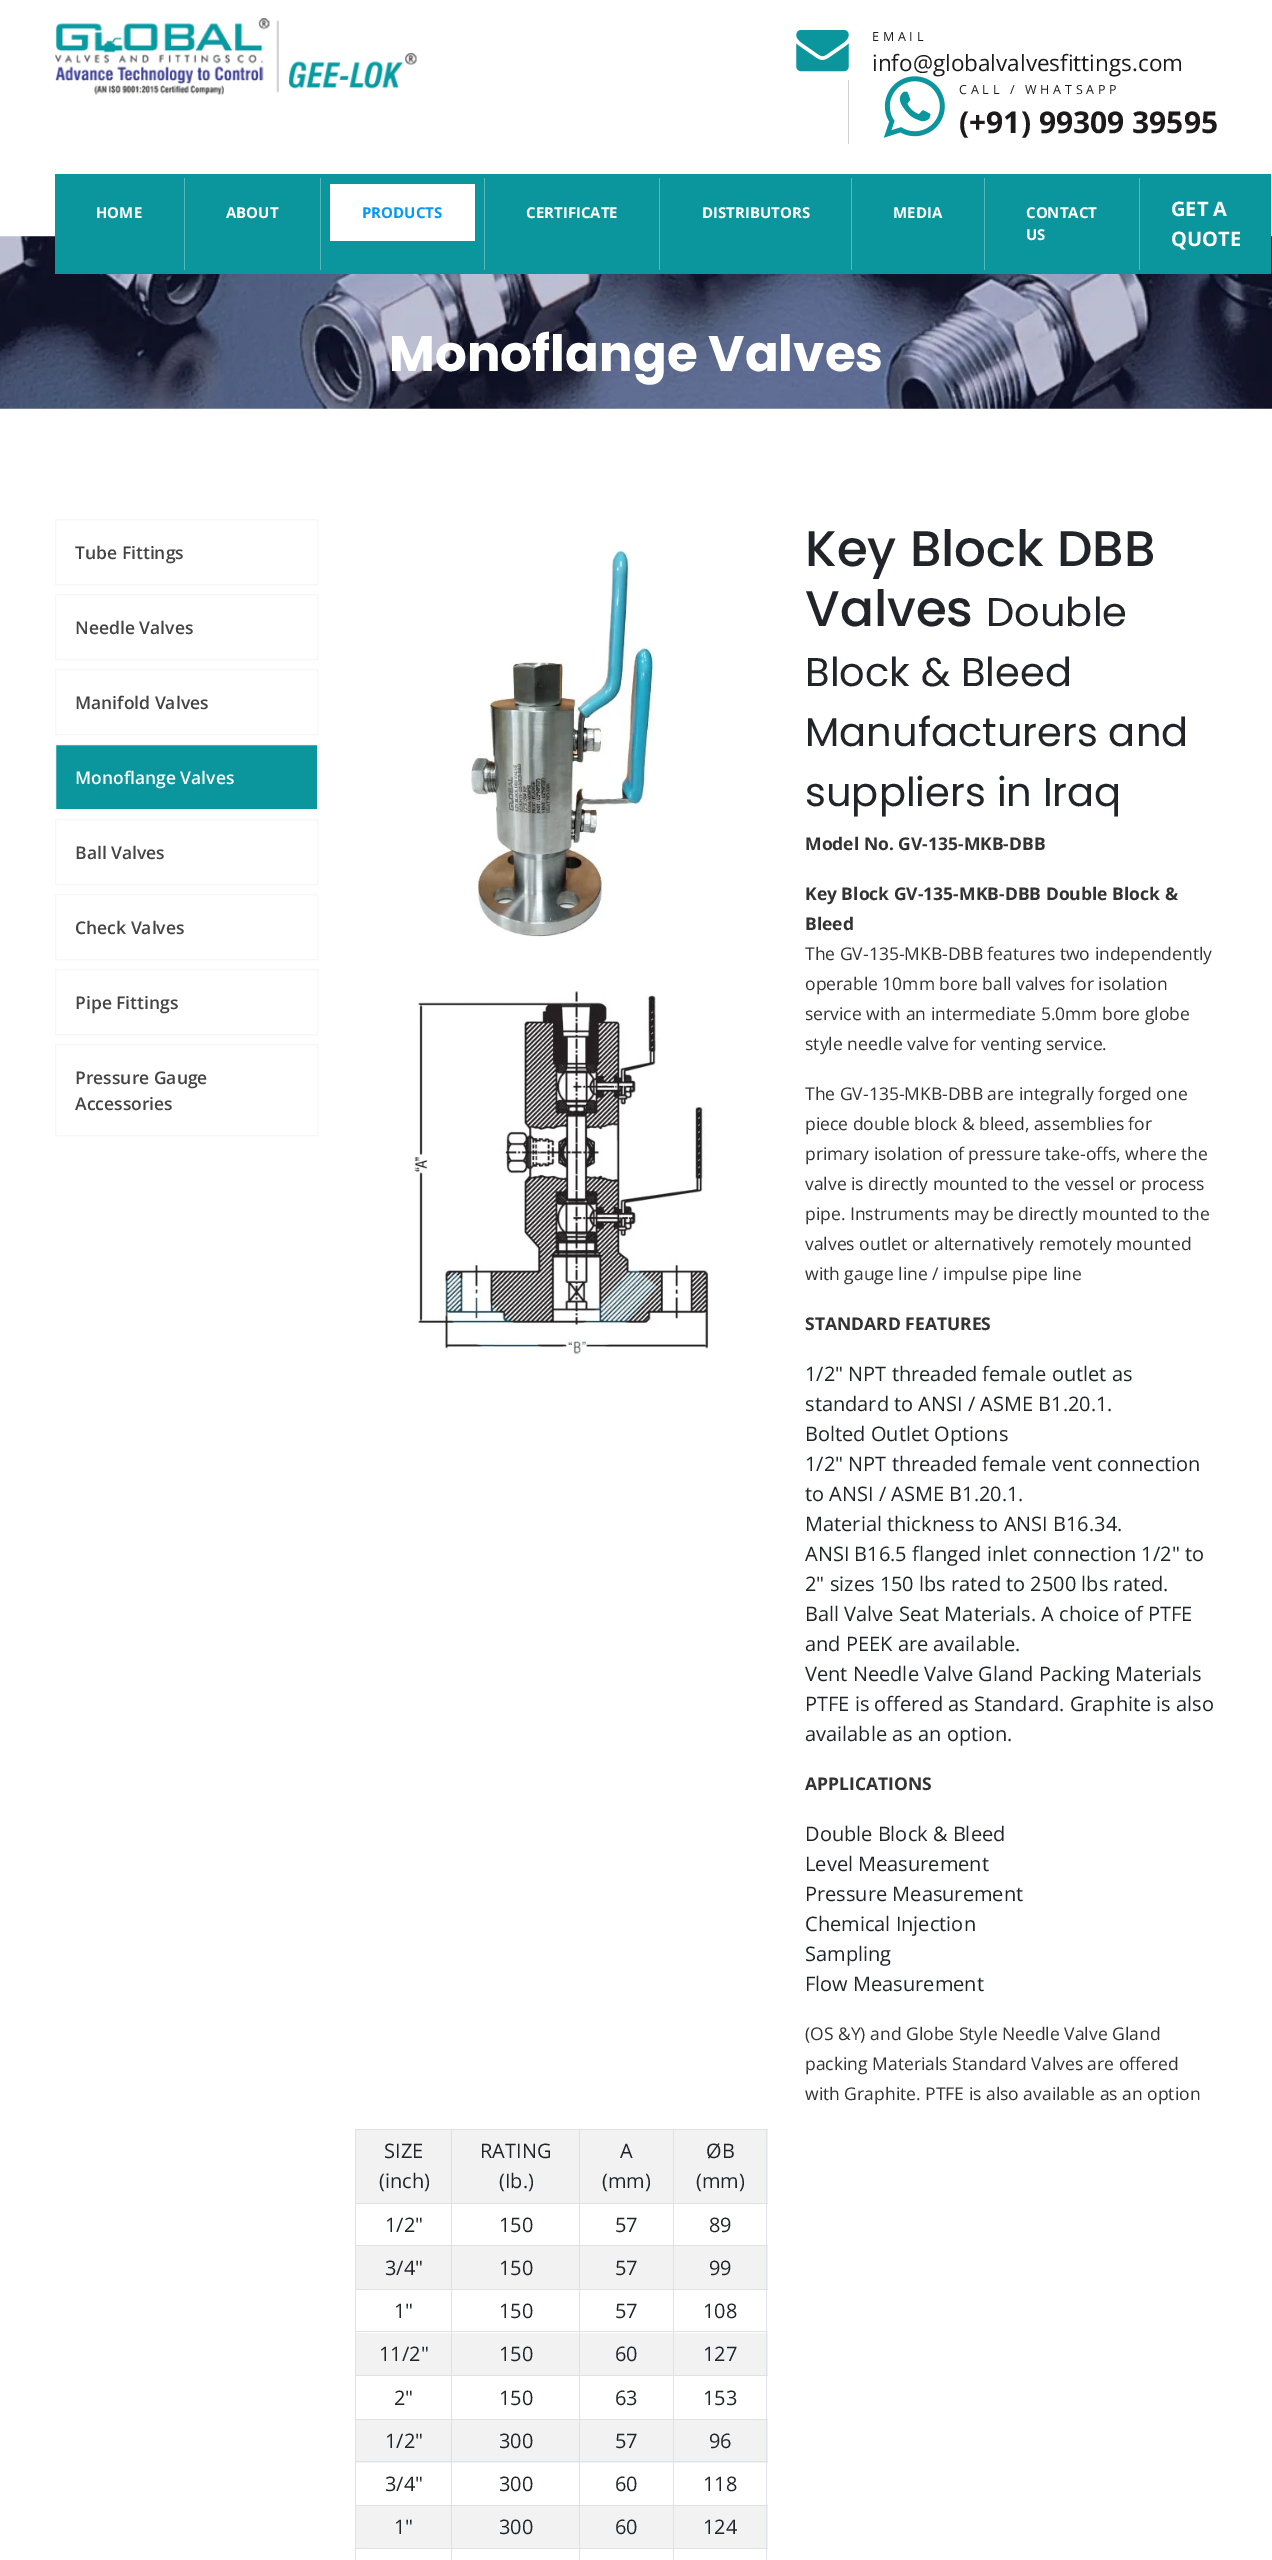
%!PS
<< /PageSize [1272 2560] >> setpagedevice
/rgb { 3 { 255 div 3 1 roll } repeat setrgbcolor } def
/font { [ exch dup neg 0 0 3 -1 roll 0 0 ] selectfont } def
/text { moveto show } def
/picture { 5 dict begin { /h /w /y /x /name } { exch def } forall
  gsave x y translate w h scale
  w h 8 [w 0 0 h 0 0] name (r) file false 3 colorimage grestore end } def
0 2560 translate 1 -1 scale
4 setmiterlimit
255 255 255 rgb
0 0 1272 2560 rectfill
(img_01.rgb) 55 18 362 77 picture
(img_02.rgb) 796 30 53 42 picture
210 209 209 rgb
848 80 1 64 rectfill
(img_04.rgb) 0 236 1272 173 picture
11 150 157 rgb
55 174 1216 100 rectfill
87 183 187 rgb
184 178 1 92 rectfill
320 178 1 92 rectfill
484 178 1 92 rectfill
255 255 255 rgb
330 184 145 57 rectfill
87 183 187 rgb
659 178 1 92 rectfill
851 178 1 92 rectfill
984 178 1 92 rectfill
1139 178 1 92 rectfill
247 247 247 rgb
55.5 519.5 262 65 rectstroke
55.5 594.5 262 65 rectstroke
55.5 669.5 262 65 rectstroke
11 150 157 rgb
55.5 744.5 moveto 262 0 rlineto 0 65 rlineto -262 0 rlineto closepath gsave fill grestore
247 247 247 rgb
stroke
55.5 819.5 262 65 rectstroke
55.5 894.5 262 65 rectstroke
55.5 969.5 262 65 rectstroke
55.5 1044.5 262 91 rectstroke
(img_05.rgb) 471 549 185 388 picture
(img_06.rgb) 414 991 295 364 picture
242 242 242 rgb
356 2130 412 73 rectfill
222 226 230 rgb
673 2129 95 1 rectfill
673 2203 95 1 rectfill
673 2245 95 1 rectfill
242 242 242 rgb
356 2246 412 43 rectfill
222 226 230 rgb
673 2289 95 1 rectfill
673 2331 95 1 rectfill
242 242 242 rgb
356 2333 412 42 rectfill
222 226 230 rgb
673 2375 95 1 rectfill
673 2419 95 1 rectfill
242 242 242 rgb
356 2420 412 43 rectfill
222 226 230 rgb
673 2461 95 1 rectfill
673 2505 95 1 rectfill
242 242 242 rgb
356 2506 412 42 rectfill
222 226 230 rgb
673 2548 95 1 rectfill
673 2548 1 12 rectfill
579 2548 95 1 rectfill
673 2505 1 44 rectfill
579 2505 95 1 rectfill
673 2461 1 45 rectfill
579 2461 95 1 rectfill
673 2419 1 44 rectfill
579 2419 95 1 rectfill
673 2375 1 45 rectfill
579 2375 95 1 rectfill
673 2331 1 45 rectfill
579 2331 95 1 rectfill
673 2289 1 44 rectfill
579 2289 95 1 rectfill
673 2245 1 45 rectfill
579 2245 95 1 rectfill
673 2203 1 43 rectfill
579 2203 95 1 rectfill
673 2129 1 75 rectfill
579 2129 95 1 rectfill
579 2548 1 12 rectfill
451 2548 129 1 rectfill
579 2505 1 44 rectfill
451 2505 129 1 rectfill
579 2461 1 45 rectfill
451 2461 129 1 rectfill
579 2419 1 44 rectfill
451 2419 129 1 rectfill
579 2375 1 45 rectfill
451 2375 129 1 rectfill
579 2331 1 45 rectfill
451 2331 129 1 rectfill
579 2289 1 44 rectfill
451 2289 129 1 rectfill
579 2245 1 45 rectfill
451 2245 129 1 rectfill
579 2203 1 43 rectfill
451 2203 129 1 rectfill
579 2129 1 75 rectfill
451 2129 129 1 rectfill
451 2548 1 12 rectfill
355 2548 98 1 rectfill
451 2505 1 44 rectfill
355 2505 98 1 rectfill
451 2461 1 45 rectfill
355 2461 98 1 rectfill
451 2419 1 44 rectfill
355 2419 98 1 rectfill
451 2375 1 45 rectfill
355 2375 98 1 rectfill
451 2331 1 45 rectfill
355 2331 98 1 rectfill
451 2289 1 44 rectfill
355 2289 98 1 rectfill
451 2245 1 45 rectfill
355 2245 98 1 rectfill
451 2203 1 43 rectfill
355 2203 98 1 rectfill
451 2129 1 75 rectfill
355 2129 98 1 rectfill
355 2548 1 12 rectfill
355 2505 1 44 rectfill
355 2461 1 45 rectfill
355 2419 1 44 rectfill
355 2375 1 45 rectfill
355 2331 1 45 rectfill
355 2289 1 44 rectfill
355 2245 1 45 rectfill
355 2203 1 43 rectfill
355 2129 1 75 rectfill
766 2548 1 12 rectfill
766 2505 1 44 rectfill
766 2461 1 45 rectfill
766 2419 1 44 rectfill
766 2375 1 45 rectfill
766 2331 1 45 rectfill
766 2289 1 44 rectfill
766 2245 1 45 rectfill
766 2203 1 43 rectfill
766 2129 1 75 rectfill
/OpenSans-Regular 12.5 font
28 26 26 rgb
872 41 moveto 3.75 0 (EMAIL) ashow
/OpenSans-Regular 22.5 font
(info@globalvalvesfittings.com) 872 71 text
(img_03.rgb) 883 76 62 62 picture
/OpenSans-Regular 12.5 font
959 94 moveto 3.75 0 (CALL / WHATSAPP) ashow
/OpenSans-Bold 30 font
(\(+91\) 99309 39595) 959 133 text
/OpenSans-Bold 15 font
255 255 255 rgb
(HOME) 96 218 text
(ABOUT) 226 218 text
5 153 243 rgb
(PRODUCTS) 362 218 text
255 255 255 rgb
(CERTIFICATE) 526 218 text
(DISTRIBUTORS) 702 218 text
(MEDIA) 893 218 text
(CONTACT) 1026 218 text
(US) 1026 240 text
/OpenSans-Bold 20 font
(GET A) 1171 216 text
(QUOTE) 1171 246 text
/Poppins-Bold 50 font
(Monoflange Valves) 389 371 text
/OpenSans-SemiBold 17.5 font
68 68 68 rgb
(Tube Fittings) 75 559 text
(Needle Valves) 75 634 text
(Manifold Valves) 75 709 text
255 255 255 rgb
(Monoflange Valves) 75 784 text
68 68 68 rgb
(Ball Valves) 75 859 text
(Check Valves) 75 934 text
(Pipe Fittings) 75 1009 text
(Pressure Gauge) 75 1084 text
(Accessories) 75 1110 text
/Poppins-Medium 50 font
33 37 41 rgb
(Key Block DBB) 805 566 text
(Valves) 805 626 text
/Poppins-Regular 40 font
(Double) 986 626 text
(Block & Bleed) 805 686 text
(Manufacturers and) 805 746 text
(suppliers in Iraq) 805 806 text
/OpenSans-Bold 17.5 font
51 51 51 rgb
(Model No. GV-135-MKB-DBB) 805 850 text
(Key Block GV-135-MKB-DBB Double Block &) 805 900 text
(Bleed) 805 930 text
/OpenSans-Regular 17.5 font
(The GV-135-MKB-DBB features two independently) 805 960 text
(operable 10mm bore ball valves for isolation) 805 990 text
(service with an intermediate 5.0mm bore globe) 805 1020 text
(style needle valve for venting service.) 805 1050 text
(The GV-135-MKB-DBB are integrally forged one) 805 1100 text
(piece double block & bleed, assemblies for) 805 1130 text
(primary isolation of pressure take-offs, where the) 805 1160 text
(valve is directly mounted to the vessel or process) 805 1190 text
(pipe. Instruments may be directly mounted to the) 805 1220 text
(valves outlet or alternatively remotely mounted) 805 1250 text
(with gauge line / impulse pipe line) 805 1280 text
/OpenSans-Bold 17.5 font
(STANDARD FEATURES) 805 1330 text
/OpenSans-Regular 20 font
33 37 41 rgb
(1/2" NPT threaded female outlet as) 805 1381 text
(standard to ANSI / ASME B1.20.1.) 805 1411 text
(Bolted Outlet Options) 805 1441 text
(1/2" NPT threaded female vent connection) 805 1471 text
(to ANSI / ASME B1.20.1.) 805 1501 text
(Material thickness to ANSI B16.34.) 805 1531 text
(ANSI B16.5 flanged inlet connection 1/2" to) 805 1561 text
(2" sizes 150 lbs rated to 2500 lbs rated.) 805 1591 text
(Ball Valve Seat Materials. A choice of PTFE) 805 1621 text
(and PEEK are available.) 805 1651 text
(Vent Needle Valve Gland Packing Materials) 805 1681 text
(PTFE is offered as Standard. Graphite is also) 805 1711 text
(available as an option.) 805 1741 text
/OpenSans-Bold 17.5 font
51 51 51 rgb
(APPLICATIONS) 805 1790 text
/OpenSans-Regular 20 font
33 37 41 rgb
(Double Block & Bleed) 805 1841 text
(Level Measurement) 805 1871 text
(Pressure Measurement) 805 1901 text
(Chemical Injection) 805 1931 text
(Sampling) 805 1961 text
(Flow Measurement) 805 1991 text
/OpenSans-Regular 17.5 font
51 51 51 rgb
(\(OS &Y\) and Globe Style Needle Valve Gland) 805 2040 text
(packing Materials Standard Valves are offered) 805 2070 text
(with Graphite. PTFE is also available as an option) 805 2100 text
/OpenSans-Regular 20 font
33 37 41 rgb
(SIZE) 384 2158 text
(\(inch\)) 379 2188 text
(RATING) 480 2158 text
(\(Ib.\)) 499 2188 text
(A) 620 2158 text
(\(mm\)) 602 2188 text
(ØB) 706 2158 text
(\(mm\)) 696 2188 text
(1/2") 385 2232 text
(150) 499 2232 text
(57) 615 2232 text
(89) 709 2232 text
(3/4") 385 2275 text
(150) 499 2275 text
(57) 615 2275 text
(99) 709 2275 text
(1") 394 2318 text
(150) 499 2318 text
(57) 615 2318 text
(108) 703 2318 text
(11/2") 379 2361 text
(150) 499 2361 text
(60) 615 2361 text
(127) 703 2361 text
(2") 394 2405 text
(150) 499 2405 text
(63) 615 2405 text
(153) 703 2405 text
(1/2") 385 2448 text
(300) 499 2448 text
(57) 615 2448 text
(96) 709 2448 text
(3/4") 385 2491 text
(300) 499 2491 text
(60) 615 2491 text
(118) 703 2491 text
(1") 394 2534 text
(300) 499 2534 text
(60) 615 2534 text
(124) 703 2534 text
showpage
